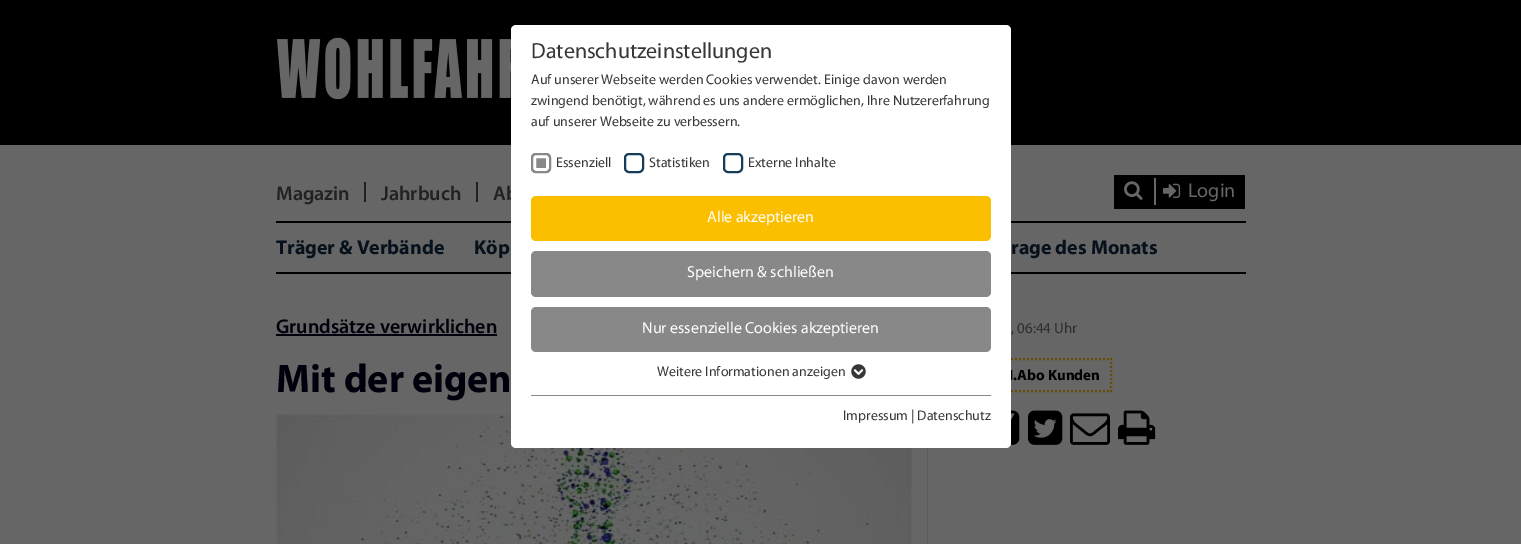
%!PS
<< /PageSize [1521 544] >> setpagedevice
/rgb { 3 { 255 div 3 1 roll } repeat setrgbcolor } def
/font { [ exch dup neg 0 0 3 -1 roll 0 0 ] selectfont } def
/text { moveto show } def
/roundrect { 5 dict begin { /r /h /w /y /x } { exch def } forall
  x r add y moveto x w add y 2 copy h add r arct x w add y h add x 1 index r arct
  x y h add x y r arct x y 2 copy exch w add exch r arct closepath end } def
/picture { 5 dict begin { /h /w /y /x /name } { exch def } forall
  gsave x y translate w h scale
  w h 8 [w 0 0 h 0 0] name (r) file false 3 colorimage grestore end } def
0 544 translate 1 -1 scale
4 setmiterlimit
102 102 102 rgb
0 0 1521 544 rectfill
0 0 0 rgb
0 0 1521 145 rectfill
(img_02.rgb) 277 37 234 63 picture
33 33 33 rgb
364 182 2 20 rectfill
476 182 2 20 rectfill
0 0 0 rgb
1114 175 131 34 rectfill
(img_03.rgb) 1124 181 19 19 picture
102 102 102 rgb
1154 178 2 27 rectfill
(img_04.rgb) 1163 183 18 15 picture
0 0 0 rgb
276 221 970 2 rectfill
276 272 970 2 rectfill
0 0 12 rgb
276 334 221 2 rectfill
(img_05.rgb) 276 414 636 130 picture
89 90 92 rgb
927 448 1 96 rectfill
101 76 0 rgb
2 setlinewidth
[2 2] 0 setdash
943 359 moveto 169 0 rlineto stroke
1111 358 moveto 0 34 rlineto stroke
943 391 moveto 169 0 rlineto stroke
(img_06.rgb) 1010 410 10 35 picture
(img_07.rgb) 1028 410 35 35 picture
(img_08.rgb) 1070 413 40 32 picture
(img_09.rgb) 1118 410 38 35 picture
/Myriad-SemiBold 20 font
33 33 33 rgb
(Magazin) 276 200 text
(Jahrbuch) 381 200 text
(Ab) 493 200 text
/Myriad-Regular 20 font
102 102 102 rgb
(Login) 1188 197 text
/Myriad-Bold 20 font
7 17 28 rgb
(Träger & Verbände) 276 254 text
(Köp) 474 254 text
(rage des Monats) 1011 254 text
/Myriad-SemiBold 20 font
0 0 12 rgb
(Grundsätze verwirklichen) 276 333 text
/Myriad-Bold 40 font
(Mit der eigen) 276 392 text
/Myriad-Regular 15 font
43 47 50 rgb
(, 06:44 Uhr) 1011 333 text
/Myriad-Bold 15 font
0 0 0 rgb
(I.Abo Kunden) 1009 380 text
255 255 255 rgb
511 25 500 423 5 roundrect fill
(img_01.rgb) 851 364 15 15 picture
20 61 89 rgb
[] 0 setdash
724 154 18 18 4 roundrect stroke
625 154 18 18 4 roundrect stroke
136 136 136 rgb
531 153 20 20 5 roundrect fill
255 255 255 rgb
3 setlinewidth
534.5 156.5 13 13 1.5 roundrect stroke
136 136 136 rgb
2 setlinewidth
532 154 18 18 4 roundrect stroke
/Myriad-Regular 14 font
55 55 55 rgb
(Weitere Informationen anzeigen) 657 376 text
136 136 136 rgb
531 307 460 45 5 roundrect fill
/Myriad-Regular 16 font
255 255 255 rgb
(Nur essenzielle Cookies akzeptieren) 642 333 text
136 136 136 rgb
531 251 460 46 5 roundrect fill
255 255 255 rgb
(Speichern & schließen) 687 277 text
252 191 0 rgb
531 196 460 45 5 roundrect fill
255 255 255 rgb
(Alle akzeptieren) 707 222 text
/Myriad-Regular 14 font
55 55 55 rgb
(Externe Inhalte) 748 167 text
(Statistiken) 649 167 text
(Essenziell) 556 167 text
(auf unserer Webseite zu verbessern.) 531 126 text
(zwingend benötigt, während es uns andere ermöglichen, Ihre Nutzererfahrung) 531 105 text
(Auf unserer Webseite werden Cookies verwendet. Einige davon werden) 531 84 text
/Myriad-Regular 22 font
(Datenschutzeinstellungen) 531 58 text
/Myriad-Regular 14 font
(Impressum | Datenschutz) 843 420 text
136 136 136 rgb
531 395 460 1 rectfill
showpage
